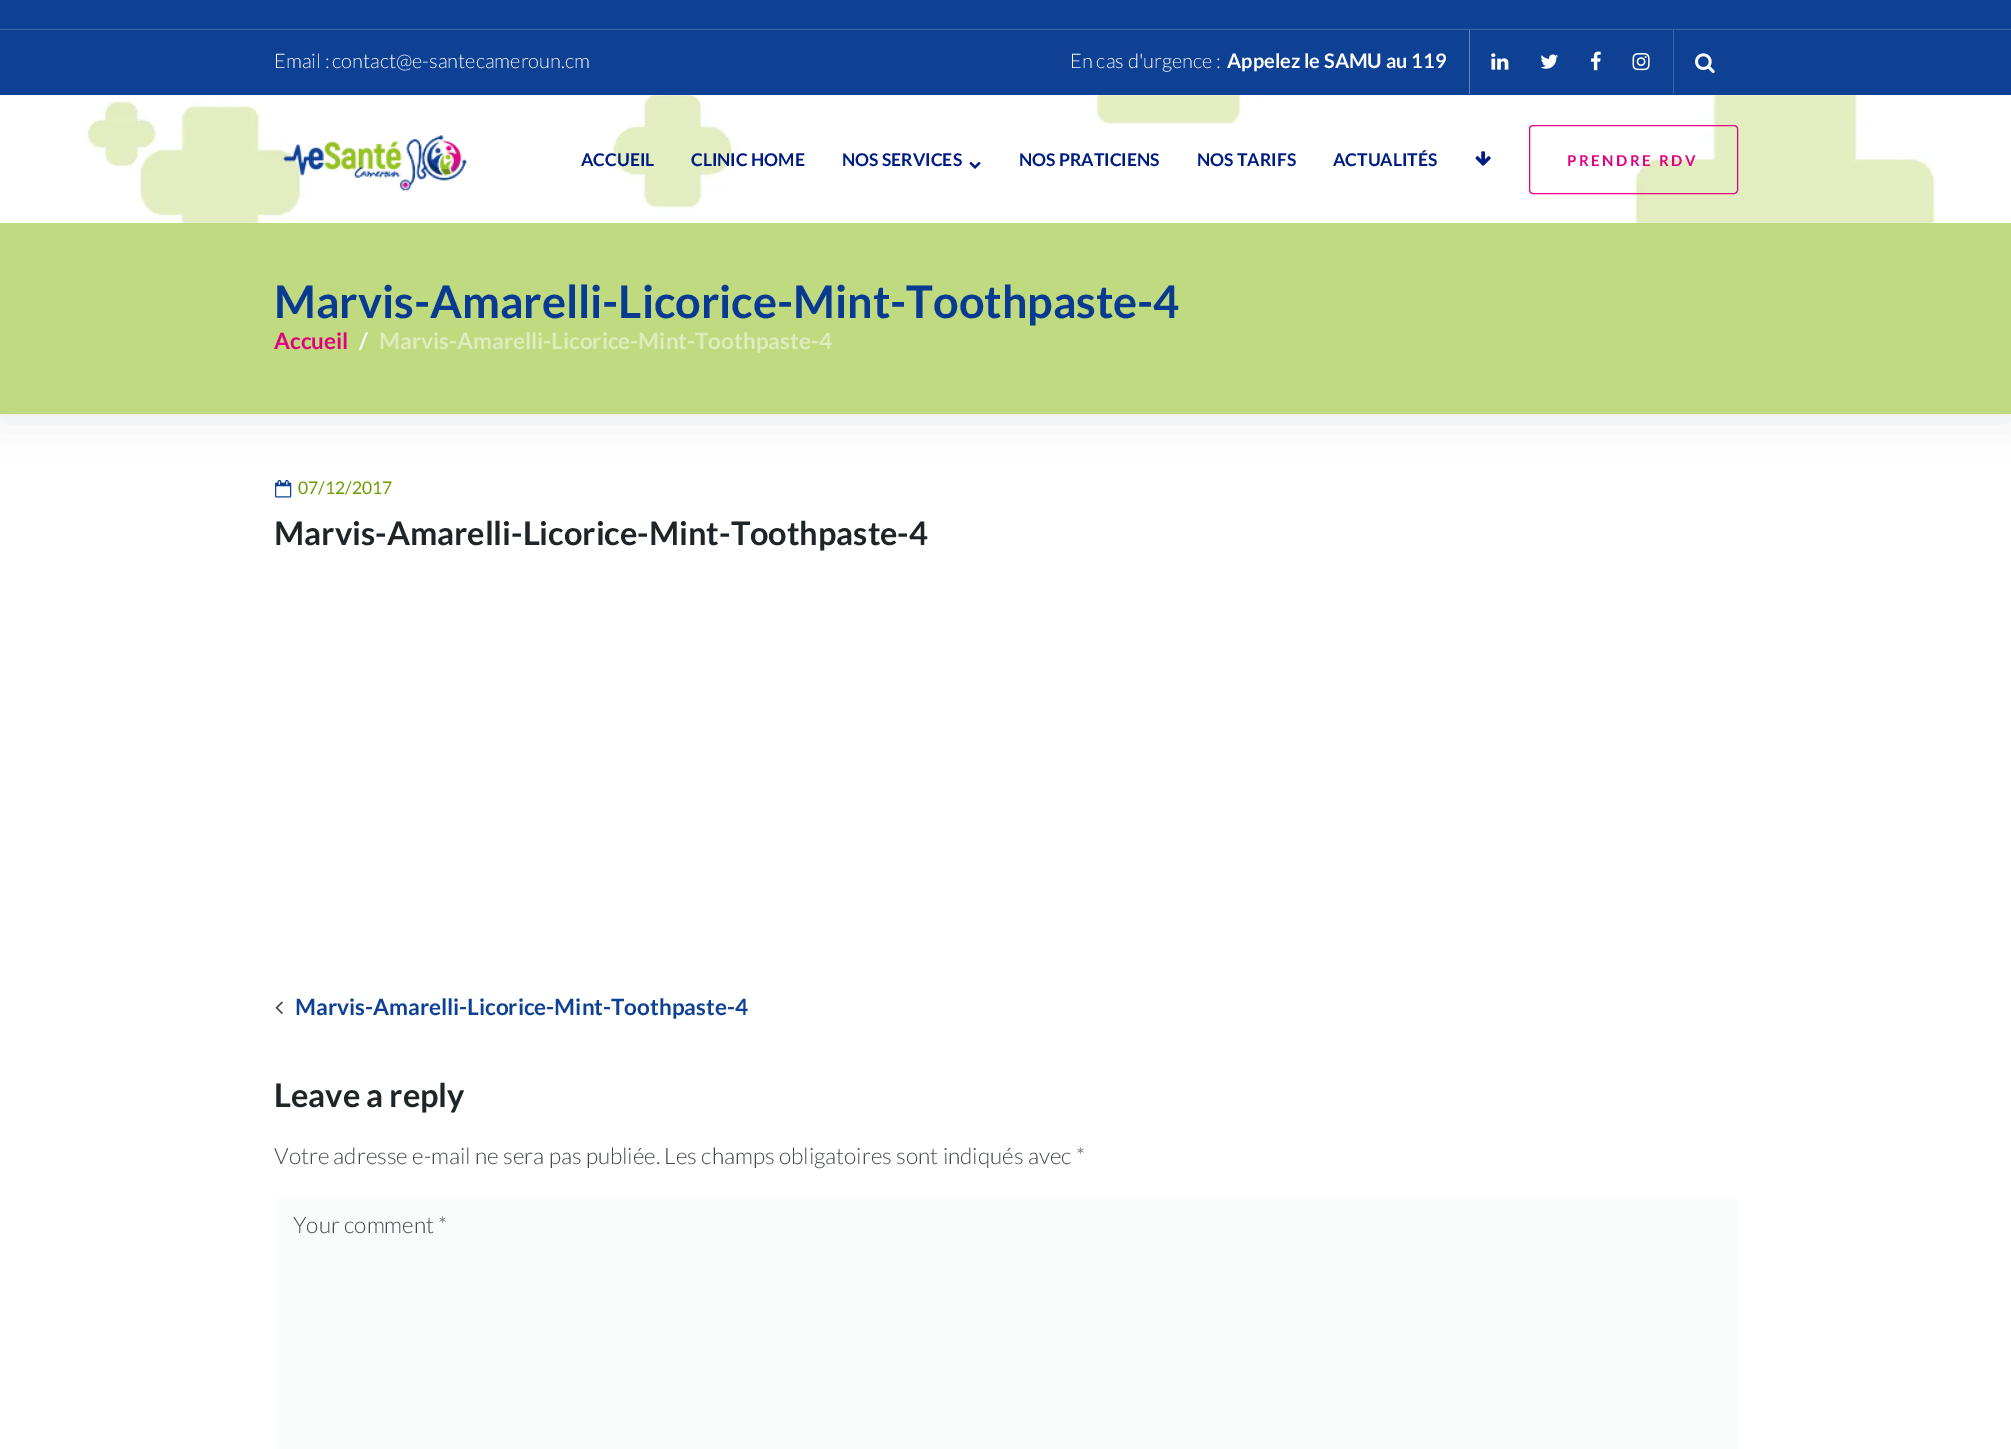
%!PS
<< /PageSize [2011 1449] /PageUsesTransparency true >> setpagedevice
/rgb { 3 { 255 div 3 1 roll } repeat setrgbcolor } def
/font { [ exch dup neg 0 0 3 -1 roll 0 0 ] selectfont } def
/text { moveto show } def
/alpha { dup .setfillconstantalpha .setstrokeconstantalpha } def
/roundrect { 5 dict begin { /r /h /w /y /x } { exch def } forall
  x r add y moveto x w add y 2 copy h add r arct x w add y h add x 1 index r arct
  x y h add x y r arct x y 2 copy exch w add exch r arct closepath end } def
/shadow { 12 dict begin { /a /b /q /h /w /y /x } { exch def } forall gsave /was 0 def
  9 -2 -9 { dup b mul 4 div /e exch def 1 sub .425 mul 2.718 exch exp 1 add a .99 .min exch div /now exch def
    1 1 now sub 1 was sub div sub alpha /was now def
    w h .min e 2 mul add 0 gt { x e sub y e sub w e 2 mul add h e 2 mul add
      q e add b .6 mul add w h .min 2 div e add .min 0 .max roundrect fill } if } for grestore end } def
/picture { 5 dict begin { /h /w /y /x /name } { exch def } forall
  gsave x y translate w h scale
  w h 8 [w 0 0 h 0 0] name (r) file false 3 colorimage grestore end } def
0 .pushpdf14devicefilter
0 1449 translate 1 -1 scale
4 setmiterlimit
255 255 255 rgb
0 0 2011 1449 rectfill
gsave
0 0 moveto 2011 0 rlineto 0 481 rlineto -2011 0 rlineto closepath 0 -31 moveto 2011 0 rlineto 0 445 rlineto -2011 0 rlineto closepath eoclip newpath
103 122 141 rgb
0 -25 2011 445 0 20 0.17 shadow
grestore
14 65 148 rgb
0 0 2011 95 rectfill
62 103 169 rgb
0 29 2011 1 rectfill
101 133 186 rgb
1469 30 1 64 rectfill
(img_01.rgb) 1491 53 18 17 picture
(img_02.rgb) 1540 54 18 15 picture
(img_03.rgb) 1591 51 10 20 picture
(img_04.rgb) 1632 53 18 18 picture
62 103 169 rgb
1673 30 1 64 rectfill
(img_05.rgb) 1695 53 20 20 picture
(img_06.rgb) 86 95 1851 128 picture
(img_07.rgb) 283 135 184 56 picture
(img_08.rgb) 969 161 12 8 picture
(img_09.rgb) 1475 151 16 15 picture
224 1 130 rgb
1529.5 125.5 208 68 3.5 roundrect stroke
0.59 alpha
147 192 37 rgb
0 223 2011 191 rectfill
1 alpha
(img_10.rgb) 275 480 17 18 picture
(img_11.rgb) 275 1001 8 13 picture
250 251 251 rgb
275 1199 1463 250 rectfill
/Lato-Light 20 font
255 255 255 rgb
(Email :) 274 68 text
(contact@e-santecameroun.cm) 332 68 text
(En cas d'urgence :) 1070 68 text
/Lato-Bold 20 font
(Appelez le SAMU au 119) 1227 68 text
/Lato-Bold 17.5 font
0 28 130 rgb
(ACCUEIL) 581 166 text
(CLINIC HOME) 691 166 text
(NOS SERVICES) 842 166 text
(NOS PRATICIENS) 1019 166 text
(NOS TARIFS) 1197 166 text
(ACTUALITÉS) 1333 166 text
/Lato-Bold 15 font
224 1 130 rgb
1567 166 moveto 2.5 0 (PRENDRE RDV) ashow
/Lato-Bold 45 font
8 58 146 rgb
(Marvis-Amarelli-Licorice-Mint-Toothpaste-4) 274 318 text
/Lato-Bold 22.5 font
224 1 130 rgb
(Accueil) 274 349 text
255 255 255 rgb
(/) 359 349 text
223 236 191 rgb
(Marvis-Amarelli-Licorice-Mint-Toothpaste-4) 379 349 text
/Lato-Regular 17.5 font
110 155 0 rgb
(07/12/2017) 298 494 text
/Lato-Bold 32.5 font
30 36 40 rgb
(Marvis-Amarelli-Licorice-Mint-Toothpaste-4) 274 545 text
/Lato-Bold 22.5 font
14 65 148 rgb
(Marvis-Amarelli-Licorice-Mint-Toothpaste-4) 295 1015 text
/Lato-Bold 32.5 font
30 36 40 rgb
(Leave a reply) 274 1107 text
/Lato-Light 22.5 font
66 71 76 rgb
(Votre adresse e-mail ne sera pas publiée. Les champs obligatoires sont indiqués avec *) 274 1164 text
(Your comment *) 293 1233 text
.poppdf14devicefilter showpage
